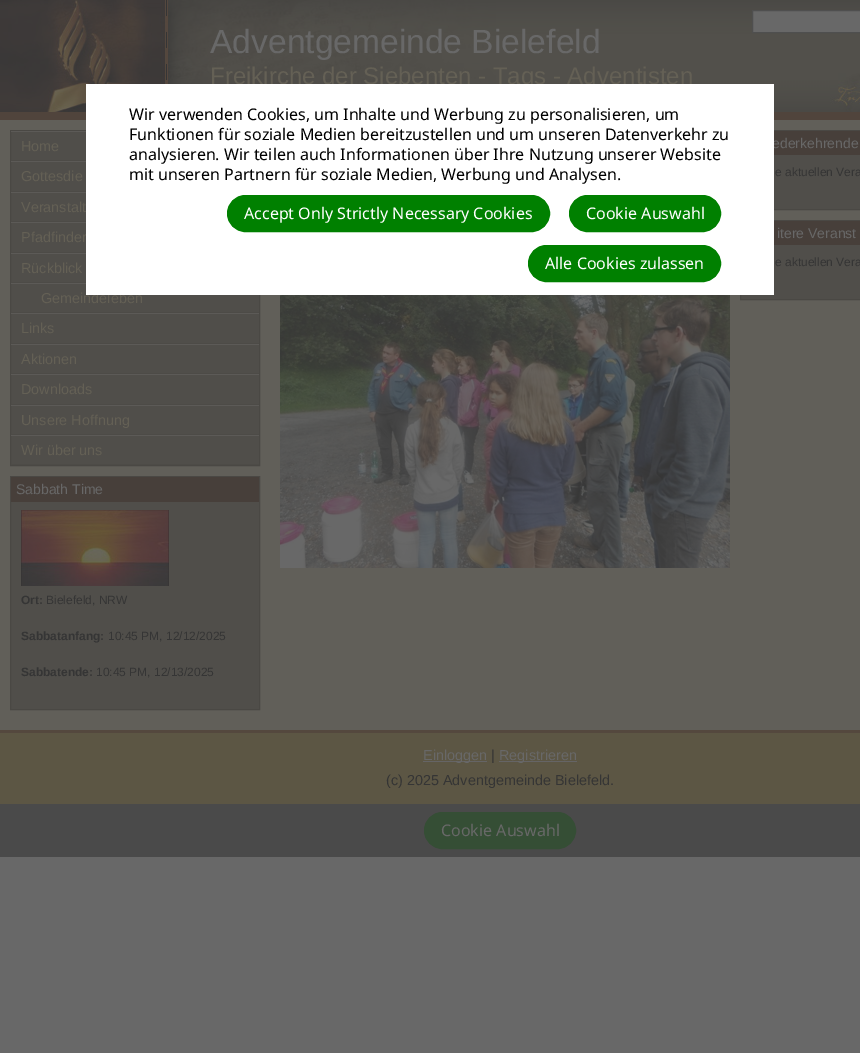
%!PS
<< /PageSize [860 1053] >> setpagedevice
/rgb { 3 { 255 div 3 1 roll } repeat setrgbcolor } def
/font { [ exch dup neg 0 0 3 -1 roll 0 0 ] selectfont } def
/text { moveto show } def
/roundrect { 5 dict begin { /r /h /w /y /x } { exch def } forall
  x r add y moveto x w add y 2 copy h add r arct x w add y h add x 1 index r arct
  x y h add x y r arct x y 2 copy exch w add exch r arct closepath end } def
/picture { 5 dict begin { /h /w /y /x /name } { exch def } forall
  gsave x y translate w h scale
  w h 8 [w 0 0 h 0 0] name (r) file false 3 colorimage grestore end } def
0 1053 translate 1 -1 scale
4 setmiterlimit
104 104 104 rgb
0 0 860 1053 rectfill
97 95 89 rgb
0 120 860 610 rectfill
(img_01.rgb) 496 0 364 112 picture
80 68 60 rgb
0 112 860 8 rectfill
(img_02.rgb) 0 0 496 112 picture
104 104 104 rgb
752.5 10.5 moveto 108 0 rlineto 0 22 rlineto -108 0 rlineto closepath gsave fill grestore
79 79 79 rgb
stroke
(img_03.rgb) 830 73 30 39 picture
80 78 74 rgb
11 132 248 332 rectfill
74 72 68 rgb
10.5 130.5 249 335 rectstroke
92 90 87 rgb
11 131 75 1 rectfill
77 75 71 rgb
11 160 75 1 rectfill
92 90 87 rgb
11 161 75 1 rectfill
77 75 71 rgb
11 191 75 1 rectfill
92 90 87 rgb
11 192 75 1 rectfill
77 75 71 rgb
11 221 75 1 rectfill
92 90 87 rgb
11 222 75 1 rectfill
77 75 71 rgb
11 252 75 1 rectfill
92 90 87 rgb
11 253 75 1 rectfill
77 75 71 rgb
11 282 75 1 rectfill
92 90 87 rgb
11 283 75 1 rectfill
77 75 71 rgb
11 312 248 1 rectfill
92 90 87 rgb
11 313 248 1 rectfill
77 75 71 rgb
11 343 248 1 rectfill
92 90 87 rgb
11 344 248 1 rectfill
77 75 71 rgb
11 373 248 1 rectfill
92 90 87 rgb
11 374 248 1 rectfill
77 75 71 rgb
11 404 248 1 rectfill
92 90 87 rgb
11 405 248 1 rectfill
77 75 71 rgb
11 434 248 1 rectfill
92 90 87 rgb
11 435 248 1 rectfill
77 75 71 rgb
11 464 248 1 rectfill
80 78 74 rgb
11 502 248 207 rectfill
74 72 68 rgb
10.5 476.5 249 233 rectstroke
71 63 58 rgb
11 477 248 25 rectfill
(img_04.rgb) 21 510 148 76 picture
(img_05.rgb) 280 295 450 273 picture
80 78 74 rgb
774 155 86 54 rectfill
74 72 68 rgb
740.5 130.5 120 79 rectstroke
71 63 58 rgb
774 131 86 24 rectfill
80 78 74 rgb
741 245 119 54 rectfill
74 72 68 rgb
740.5 220.5 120 79 rectstroke
71 63 58 rgb
774 221 86 24 rectfill
92 86 68 rgb
0 733 860 71 rectfill
84 72 62 rgb
0 730 860 3 rectfill
101 100 101 rgb
423 761 64 1 rectfill
499 761 78 1 rectfill
74 74 74 rgb
0 804 860 53 rectfill
53 78 53 rgb
424.5 812.5 151 36 18 roundrect gsave fill grestore
stroke
/LiberationSans-Regular 33.6 font
104 104 104 rgb
(Adventgemeinde Bielefeld) 210 53 text
/LiberationSans-Regular 24 font
100 96 85 rgb
(Freikirche der Siebenten - Tags - Adventisten) 210 84 text
/LiberationSans-Regular 14.4 font
(Home) 21 151 text
(Gottesdie) 21 181 text
(Veranstalt) 21 212 text
(Pfadfinder) 21 242 text
(Rückblick) 21 273 text
(Gemeindeleben) 41 303 text
(Links) 21 333 text
(Aktionen) 21 364 text
(Downloads) 21 394 text
(Unsere Hoffnung) 21 425 text
(Wir über uns) 21 455 text
/LiberationSans-Regular 14 font
104 104 104 rgb
(Sabbath Time) 16 494 text
/LiberationSans-Bold 12 font
53 53 53 rgb
(Ort:) 21 604 text
/LiberationSans-Regular 12 font
(Bielefeld, NRW) 46 604 text
/LiberationSans-Bold 12 font
(Sabbatanfang:) 21 640 text
/LiberationSans-Regular 12 font
(10:45 PM, 12/12/2025) 108 640 text
/LiberationSans-Bold 12 font
(Sabbatende:) 21 676 text
/LiberationSans-Regular 12 font
(10:45 PM, 12/13/2025) 96 676 text
/LiberationSans-Regular 14 font
104 104 104 rgb
(ederkehrende) 772 148 text
/LiberationSans-Regular 12 font
53 53 53 rgb
(e aktuellen Vera) 775 176 text
/LiberationSans-Regular 14 font
104 104 104 rgb
(itere Veranst) 777 238 text
/LiberationSans-Regular 12 font
53 53 53 rgb
(e aktuellen Vera) 775 266 text
/LiberationSans-Regular 14.4 font
104 104 104 rgb
(Einloggen) 423 760 text
53 53 53 rgb
(|) 491 760 text
104 104 104 rgb
(Registrieren) 499 760 text
53 53 53 rgb
(\(c\) 2025 Adventgemeinde Bielefeld.) 386 785 text
255 255 255 rgb
86 84 688 211 rectfill
/NotoSans-Regular 16 font
0 0 0 rgb
(Wir verwenden Cookies, um Inhalte und Werbung zu personalisieren, um) 129 120 text
(Funktionen für soziale Medien bereitzustellen und um unseren Datenverkehr zu) 129 140 text
(analysieren. Wir teilen auch Informationen über Ihre Nutzung unserer Website) 129 160 text
(mit unseren Partnern für soziale Medien, Werbung und Analysen.) 129 180 text
0 128 0 rgb
227.5 195.5 322 36 18 roundrect gsave fill grestore
stroke
255 255 255 rgb
(Accept Only Strictly Necessary Cookies) 244 219 text
0 128 0 rgb
569.5 195.5 151 36 18 roundrect gsave fill grestore
stroke
255 255 255 rgb
(Cookie Auswahl) 586 219 text
0 128 0 rgb
528.5 245.5 192 36 18 roundrect gsave fill grestore
stroke
255 255 255 rgb
(Alle Cookies zulassen) 545 269 text
104 104 104 rgb
(Cookie Auswahl) 441 836 text
showpage
